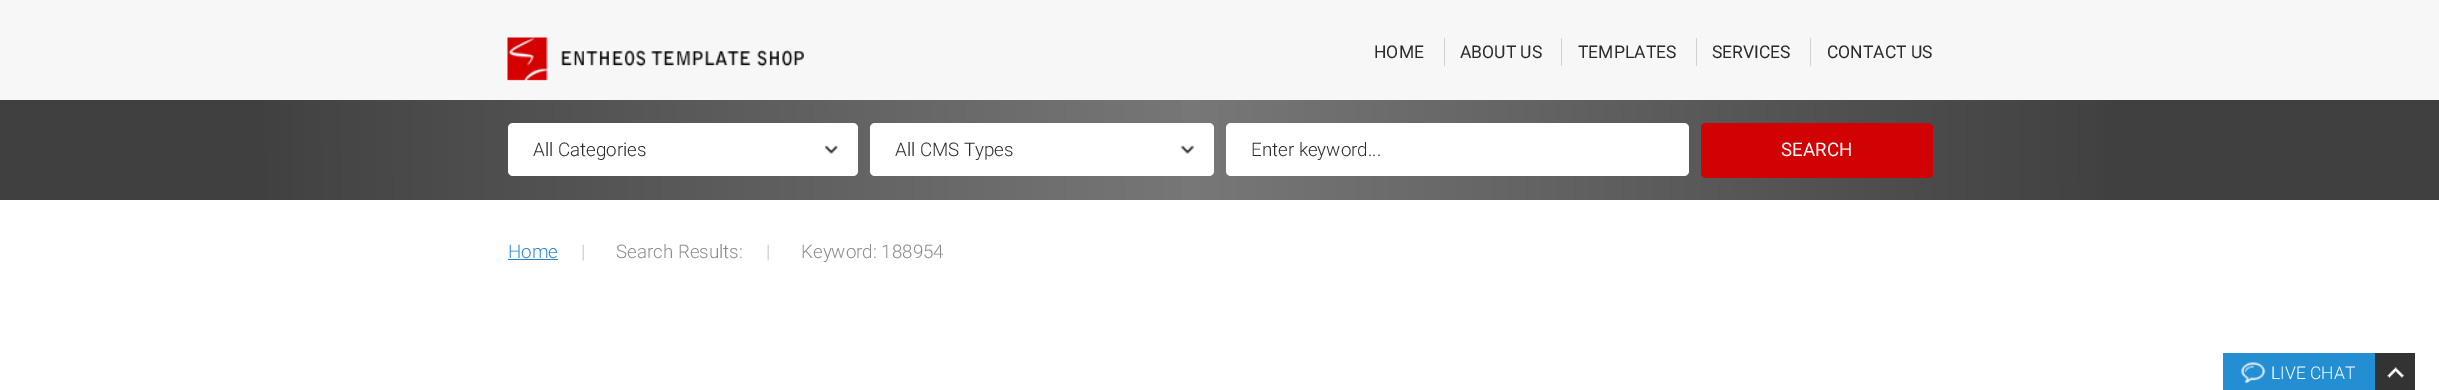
%!PS
<< /PageSize [2439 390] >> setpagedevice
/rgb { 3 { 255 div 3 1 roll } repeat setrgbcolor } def
/font { [ exch dup neg 0 0 3 -1 roll 0 0 ] selectfont } def
/text { moveto show } def
/roundrect { 5 dict begin { /r /h /w /y /x } { exch def } forall
  x r add y moveto x w add y 2 copy h add r arct x w add y h add x 1 index r arct
  x y h add x y r arct x y 2 copy exch w add exch r arct closepath end } def
/picture { 5 dict begin { /h /w /y /x /name } { exch def } forall
  gsave x y translate w h scale
  w h 8 [w 0 0 h 0 0] name (r) file false 3 colorimage grestore end } def
0 390 translate 1 -1 scale
4 setmiterlimit
247 247 247 rgb
0 0 2439 390 rectfill
(img_01.rgb) 507 37 297 44 picture
209 209 209 rgb
1444 38 1 28 rectfill
1561 38 1 28 rectfill
1696 38 1 28 rectfill
1810 38 1 28 rectfill
gsave 0 100 moveto 2439 0 rlineto 0 100 rlineto -2439 0 rlineto closepath clip newpath
<< /ShadingType 2 /ColorSpace /DeviceRGB /Coords [-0.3 160 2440 140] /Extend [true true] /Function << /FunctionType 3 /Domain [0 1] /Functions [<< /FunctionType 2 /Domain [0 1] /C0 [0.251 0.251 0.251] /C1 [0.251 0.251 0.251] /N 1 >> << /FunctionType 2 /Domain [0 1] /C0 [0.251 0.251 0.251] /C1 [0.467 0.467 0.467] /N 1 >> << /FunctionType 2 /Domain [0 1] /C0 [0.467 0.467 0.467] /C1 [0.251 0.251 0.251] /N 1 >> << /FunctionType 2 /Domain [0 1] /C0 [0.251 0.251 0.251] /C1 [0.251 0.251 0.251] /N 1 >>] /Bounds [0.1 0.49 0.87] /Encode [0 1 0 1 0 1 0 1] >> >> shfill grestore
255 255 255 rgb
508 123 350 53 5 roundrect fill
(img_02.rgb) 825 145 13 9 picture
870 123 344 53 5 roundrect fill
(img_03.rgb) 1181 145 13 9 picture
1226 123 463 53 5 roundrect fill
208 2 4 rgb
1701 123 232 55 5 roundrect fill
255 255 255 rgb
0 200 2439 190 rectfill
38 134 205 rgb
508 259 50 1 rectfill
35 142 210 rgb
2223 353 152 37 rectfill
(img_04.rgb) 2241 362 25 22 picture
51 51 51 rgb
2375 353 40 37 rectfill
(img_05.rgb) 2387 367 17 11 picture
/Roboto-Regular 17.5 font
43 43 43 rgb
(HOME) 1374 58 text
(ABOUT US) 1460 58 text
(TEMPLATES) 1578 58 text
(SERVICES) 1712 58 text
(CONTACT US) 1827 58 text
/Roboto-Light 18.75 font
(All Categories) 533 156 text
(All CMS Types) 895 156 text
(Enter keyword...) 1251 156 text
/Roboto-Regular 18.75 font
255 255 255 rgb
(SEARCH) 1781 156 text
/Roboto-Light 18.75 font
38 134 205 rgb
(Home) 508 258 text
180 180 180 rgb
(|) 581 258 text
140 140 140 rgb
(Search Results:) 616 258 text
180 180 180 rgb
(|) 766 258 text
140 140 140 rgb
(Keyword: 188954) 801 258 text
/Roboto-Light 17.5 font
255 255 255 rgb
(LIVE CHAT) 2271 379 text
showpage
